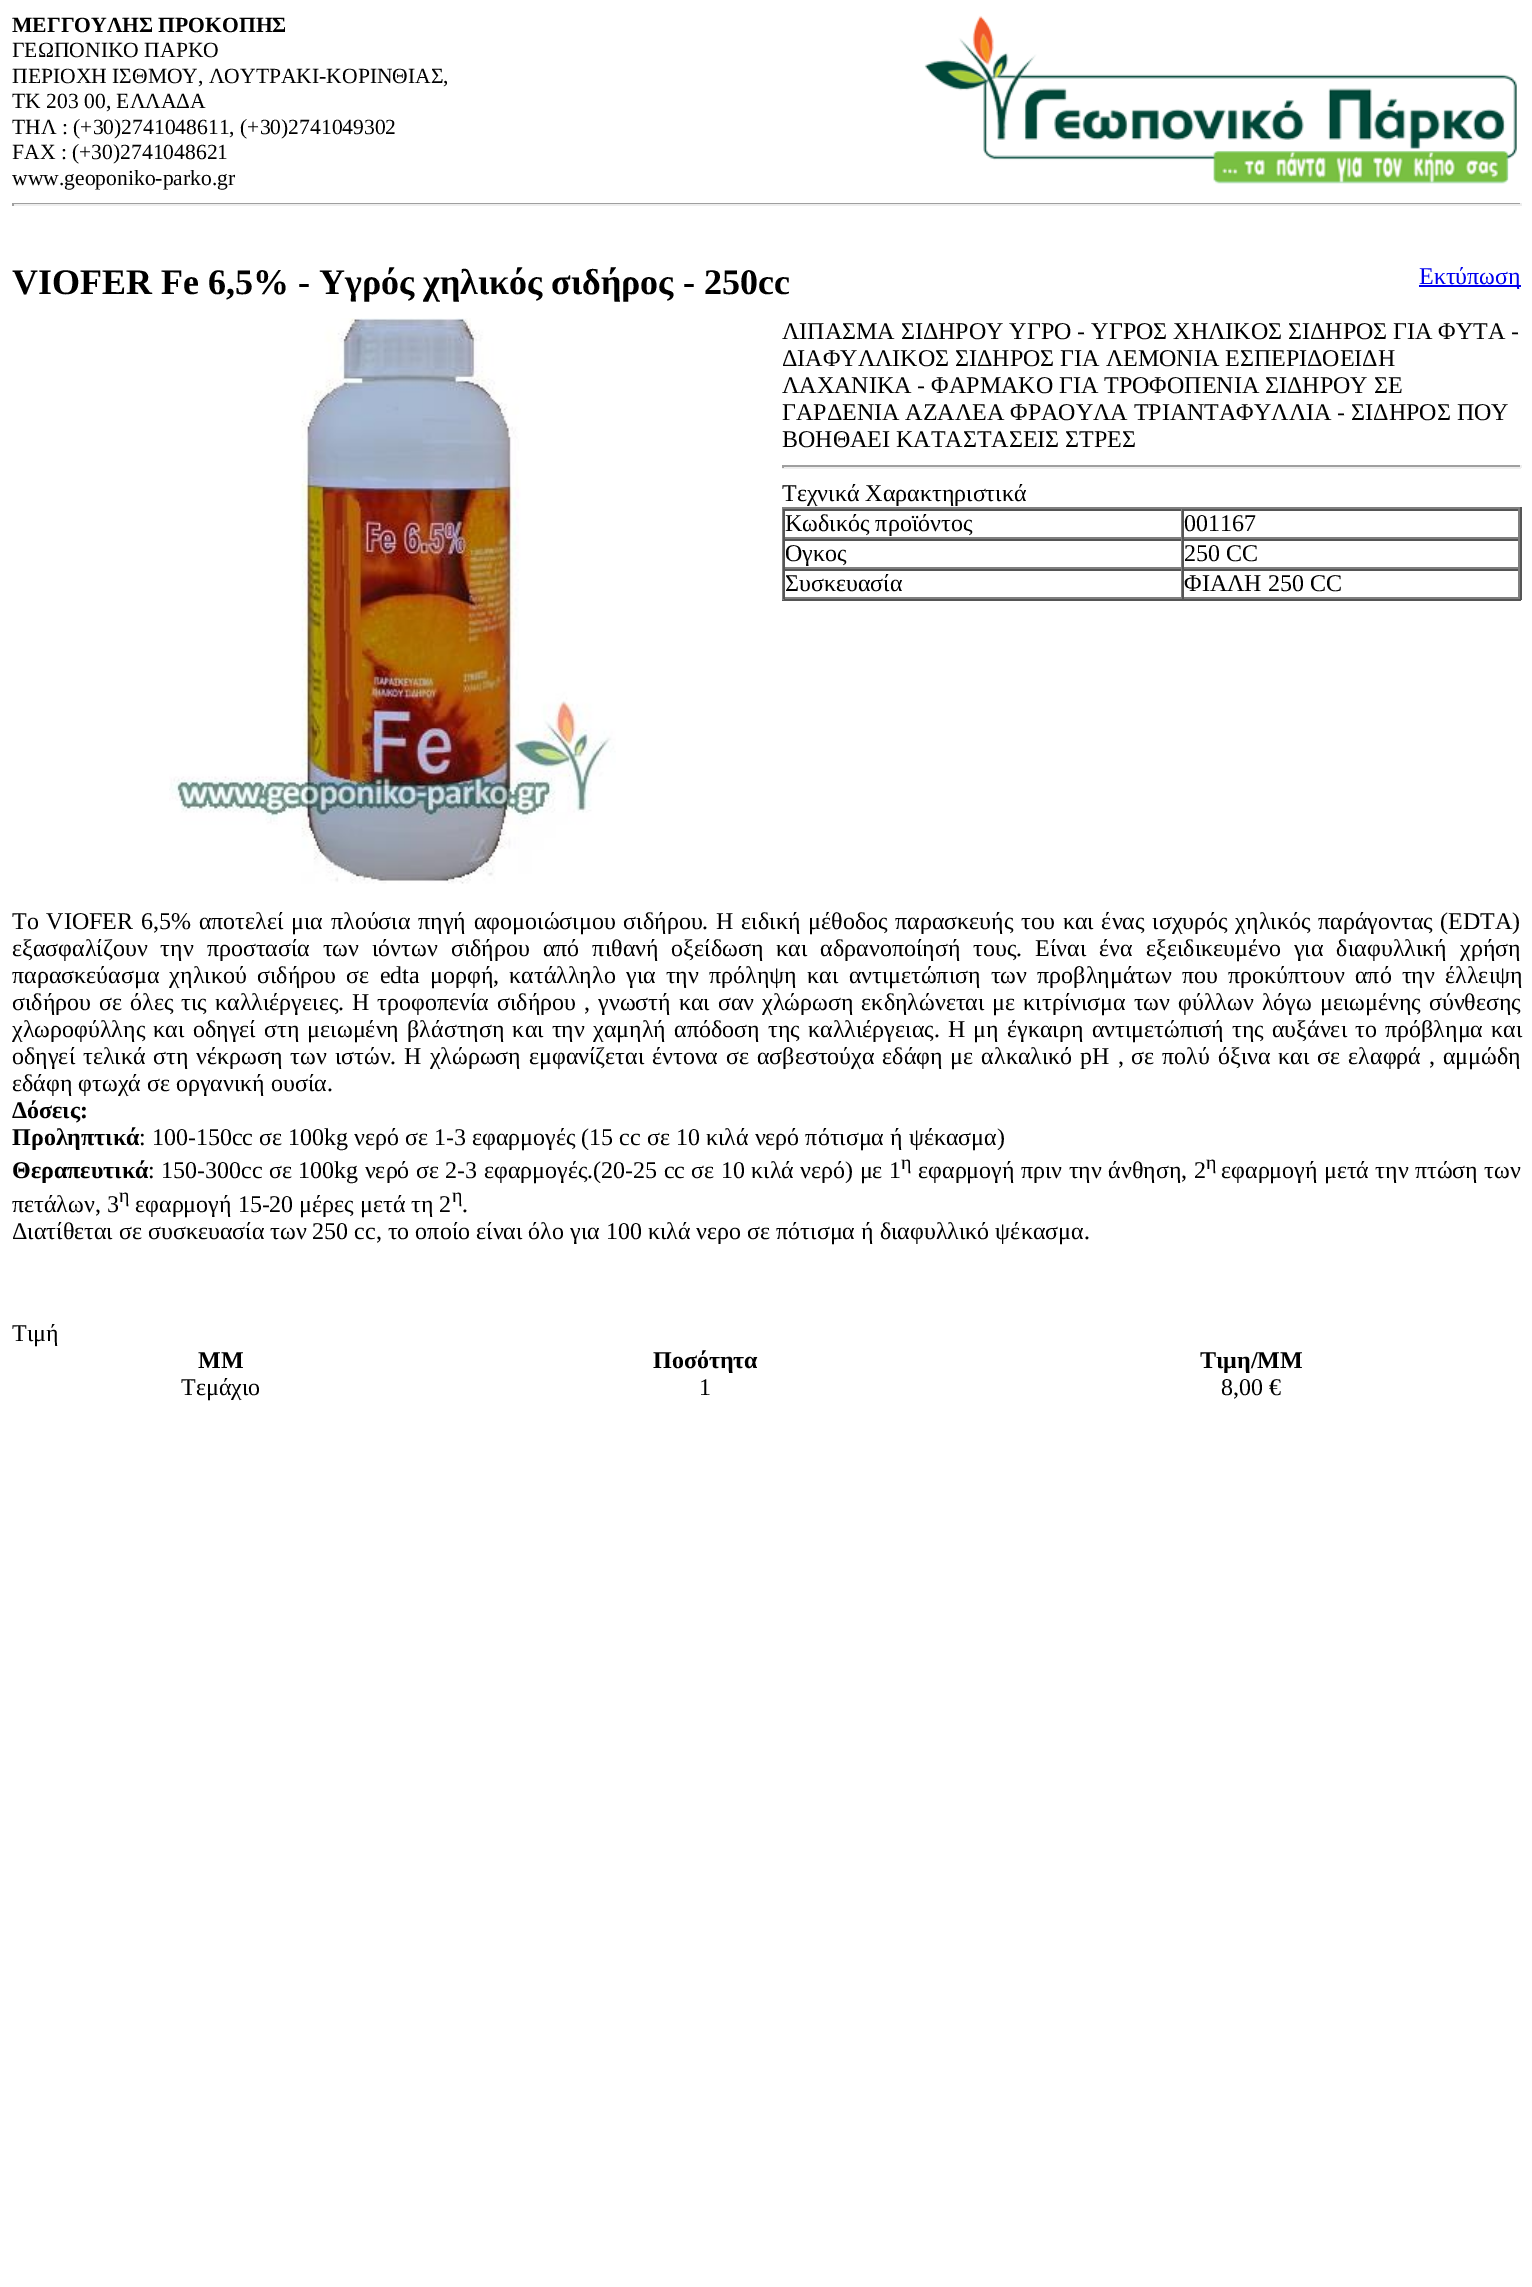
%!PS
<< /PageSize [1532 2287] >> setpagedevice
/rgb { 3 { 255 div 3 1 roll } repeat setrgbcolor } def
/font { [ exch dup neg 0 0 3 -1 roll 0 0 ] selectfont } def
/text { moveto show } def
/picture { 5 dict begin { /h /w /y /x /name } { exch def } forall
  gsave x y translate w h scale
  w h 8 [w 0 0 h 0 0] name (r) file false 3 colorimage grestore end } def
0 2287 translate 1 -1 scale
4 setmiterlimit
255 255 255 rgb
0 0 1532 2287 rectfill
(img_01.rgb) 924 15 593 169 picture
159 159 159 rgb
12 203 1509 1 rectfill
238 238 238 rgb
1520 203 2 3 rectfill
12 204 1509 2 rectfill
159 159 159 rgb
12 203 2 3 rectfill
0 0 238 rgb
1419 285 102 2 rectfill
(img_02.rgb) 169 318 447 566 picture
159 159 159 rgb
782 465 739 2 rectfill
238 238 238 rgb
1520 465 2 3 rectfill
782 467 739 2 rectfill
159 159 159 rgb
782 465 2 3 rectfill
128 128 128 rgb
782 507 739 2 rectfill
85 85 85 rgb
1520 507 2 93 rectfill
782 599 739 2 rectfill
128 128 128 rgb
782 507 2 93 rectfill
85 85 85 rgb
783 509 737 2 rectfill
128 128 128 rgb
1181 509 1 30 rectfill
783 537 399 2 rectfill
85 85 85 rgb
783 509 2 30 rectfill
128 128 128 rgb
1518 509 2 30 rectfill
1182 537 338 2 rectfill
85 85 85 rgb
1182 509 2 30 rectfill
783 539 737 2 rectfill
128 128 128 rgb
1181 539 1 30 rectfill
783 567 399 2 rectfill
85 85 85 rgb
783 539 2 30 rectfill
128 128 128 rgb
1518 539 2 30 rectfill
1182 567 338 2 rectfill
85 85 85 rgb
1182 539 2 30 rectfill
783 569 737 2 rectfill
128 128 128 rgb
1181 569 1 30 rectfill
783 597 399 2 rectfill
85 85 85 rgb
783 569 2 30 rectfill
128 128 128 rgb
1518 569 2 30 rectfill
1182 597 338 2 rectfill
85 85 85 rgb
1182 569 2 30 rectfill
/LiberationSerif-Bold 21.6 font
0 0 0 rgb
(ΜΕΓΓΟΥΛΗΣ ΠΡΟΚΟΠΗΣ) 12 32 text
/LiberationSerif-Regular 21.6 font
(ΓΕΩΠΟΝΙΚΟ ΠΑΡΚΟ) 12 57 text
(ΠΕΡΙΟΧΗ ΙΣΘΜΟΥ, ΛΟΥΤΡΑΚΙ-ΚΟΡΙΝΘΙΑΣ,) 12 83 text
(ΤΚ 203 00, ΕΛΛΑΔΑ) 12 108 text
(ΤΗΛ : \(+30\)2741048611, \(+30\)2741049302) 12 134 text
(FΑΧ : \(+30\)2741048621) 12 159 text
(www.geoponiko-parko.gr) 12 185 text
/LiberationSerif-Bold 36 font
(VIOFER Fe 6,5% - Υγρός χηλικός σιδήρος - 250cc) 12 294 text
/LiberationSerif-Regular 24 font
0 0 238 rgb
(Εκτύπωση) 1419 284 text
0 0 0 rgb
(ΛΙΠΑΣΜΑ ΣΙΔΗΡΟΥ ΥΓΡΟ - ΥΓΡΟΣ ΧΗΛΙΚΟΣ ΣΙΔΗΡΟΣ ΓΙΑ ΦΥΤΑ -) 782 339 text
(ΔΙΑΦΥΛΛΙΚΟΣ ΣΙΔΗΡΟΣ ΓΙΑ ΛΕΜΟΝΙΑ ΕΣΠΕΡΙΔΟΕΙΔΗ) 782 366 text
(ΛΑΧΑΝΙΚΑ - ΦΑΡΜΑΚΟ ΓΙΑ ΤΡΟΦΟΠΕΝΙΑ ΣΙΔΗΡΟΥ ΣΕ) 782 393 text
(ΓΑΡΔΕΝΙΑ ΑΖΑΛΕΑ ΦΡΑΟΥΛΑ ΤΡΙΑΝΤΑΦΥΛΛΙΑ - ΣΙΔΗΡΟΣ ΠΟΥ) 782 420 text
(ΒΟΗΘΑΕΙ ΚΑΤΑΣΤΑΣΕΙΣ ΣΤΡΕΣ) 782 447 text
(Τεχνικά Χαρακτηριστικά) 782 501 text
(Κωδικός προϊόντος) 785 531 text
(001167) 1184 531 text
(Ογκος) 785 561 text
(250 CC) 1184 561 text
(Συσκευασία) 785 591 text
(ΦΙΑΛΗ 250 CC) 1184 591 text
12 929 moveto 1.8 0 32 (Το VIOFER 6,5% αποτελεί μια πλούσια πηγή αφομοιώσιμου σιδήρου. Η ειδική μέθοδος παρασκευής του και ένας ισχυρός χηλικός παράγοντας \(EDTA\)) widthshow
12 956 moveto 7 0 32 (εξασφαλίζουν την προστασία των ιόντων σιδήρου από πιθανή οξείδωση και αδρανοποίησή τους. Είναι ένα εξειδικευμένο για διαφυλλική χρήση) widthshow
12 983 moveto 4.25 0 32 (παρασκεύασμα χηλικού σιδήρου σε edta μορφή, κατάλληλο για την πρόληψη και αντιμετώπιση των προβλημάτων που προκύπτουν από την έλλειψη) widthshow
12 1010 moveto 2 0 32 (σιδήρου σε όλες τις καλλιέργειες. Η τροφοπενία σιδήρου , γνωστή και σαν χλώρωση εκδηλώνεται με κιτρίνισμα των φύλλων λόγω μειωμένης σύνθεσης) widthshow
12 1037 moveto 2.25 0 32 (χλωροφύλλης και οδηγεί στη μειωμένη βλάστηση και την χαμηλή απόδοση της καλλιέργειας. Η μη έγκαιρη αντιμετώπισή της αυξάνει το πρόβλημα και) widthshow
12 1064 moveto 1.9 0 32 (οδηγεί τελικά στη νέκρωση των ιστών. Η χλώρωση εμφανίζεται έντονα σε ασβεστούχα εδάφη με αλκαλικό pH , σε πολύ όξινα και σε ελαφρά , αμμώδη) widthshow
(εδάφη φτωχά σε οργανική ουσία.) 12 1091 text
/LiberationSerif-Bold 24 font
(Δόσεις:) 12 1118 text
(Προληπτικά) 12 1145 text
/LiberationSerif-Regular 24 font
(: 100-150cc σε 100kg νερό σε 1-3 εφαρμογές \(15 cc σε 10 κιλά νερό πότισμα ή ψέκασμα\)) 139 1145 text
/LiberationSerif-Bold 24 font
(Θεραπευτικά) 12 1178 text
/LiberationSerif-Regular 24 font
148 1178 moveto 0.4 0 32 (: 150-300cc σε 100kg νερό σε 2-3 εφαρμογές.\(20-25 cc σε 10 κιλά νερό\) με 1) widthshow
/LiberationSerif-Regular 20 font
(η) 901 1169 text
/LiberationSerif-Regular 24 font
918 1178 moveto 0.4 0 32 (εφαρμογή πριν την άνθηση, 2) widthshow
/LiberationSerif-Regular 20 font
(η) 1206 1169 text
/LiberationSerif-Regular 24 font
1221 1178 moveto 0.4 0 32 (εφαρμογή μετά την πτώση των) widthshow
(πετάλων, 3) 12 1212 text
/LiberationSerif-Regular 20 font
(η) 119 1202 text
/LiberationSerif-Regular 24 font
(εφαρμογή 15-20 μέρες μετά τη 2) 135 1212 text
/LiberationSerif-Regular 20 font
(η) 452 1202 text
/LiberationSerif-Regular 24 font
(.) 462 1212 text
(Διατίθεται σε συσκευασία των 250 cc, το οποίο είναι όλο για 100 κιλά νερο σε πότισμα ή διαφυλλικό ψέκασμα.) 12 1239 text
(Τιμή) 12 1341 text
/LiberationSerif-Bold 24 font
(ΜΜ) 198 1368 text
(Ποσότητα) 653 1368 text
(Τιμη/ΜΜ) 1200 1368 text
/LiberationSerif-Regular 24 font
(Τεμάχιο) 181 1395 text
(1) 699 1395 text
(8,00 €) 1221 1395 text
showpage
